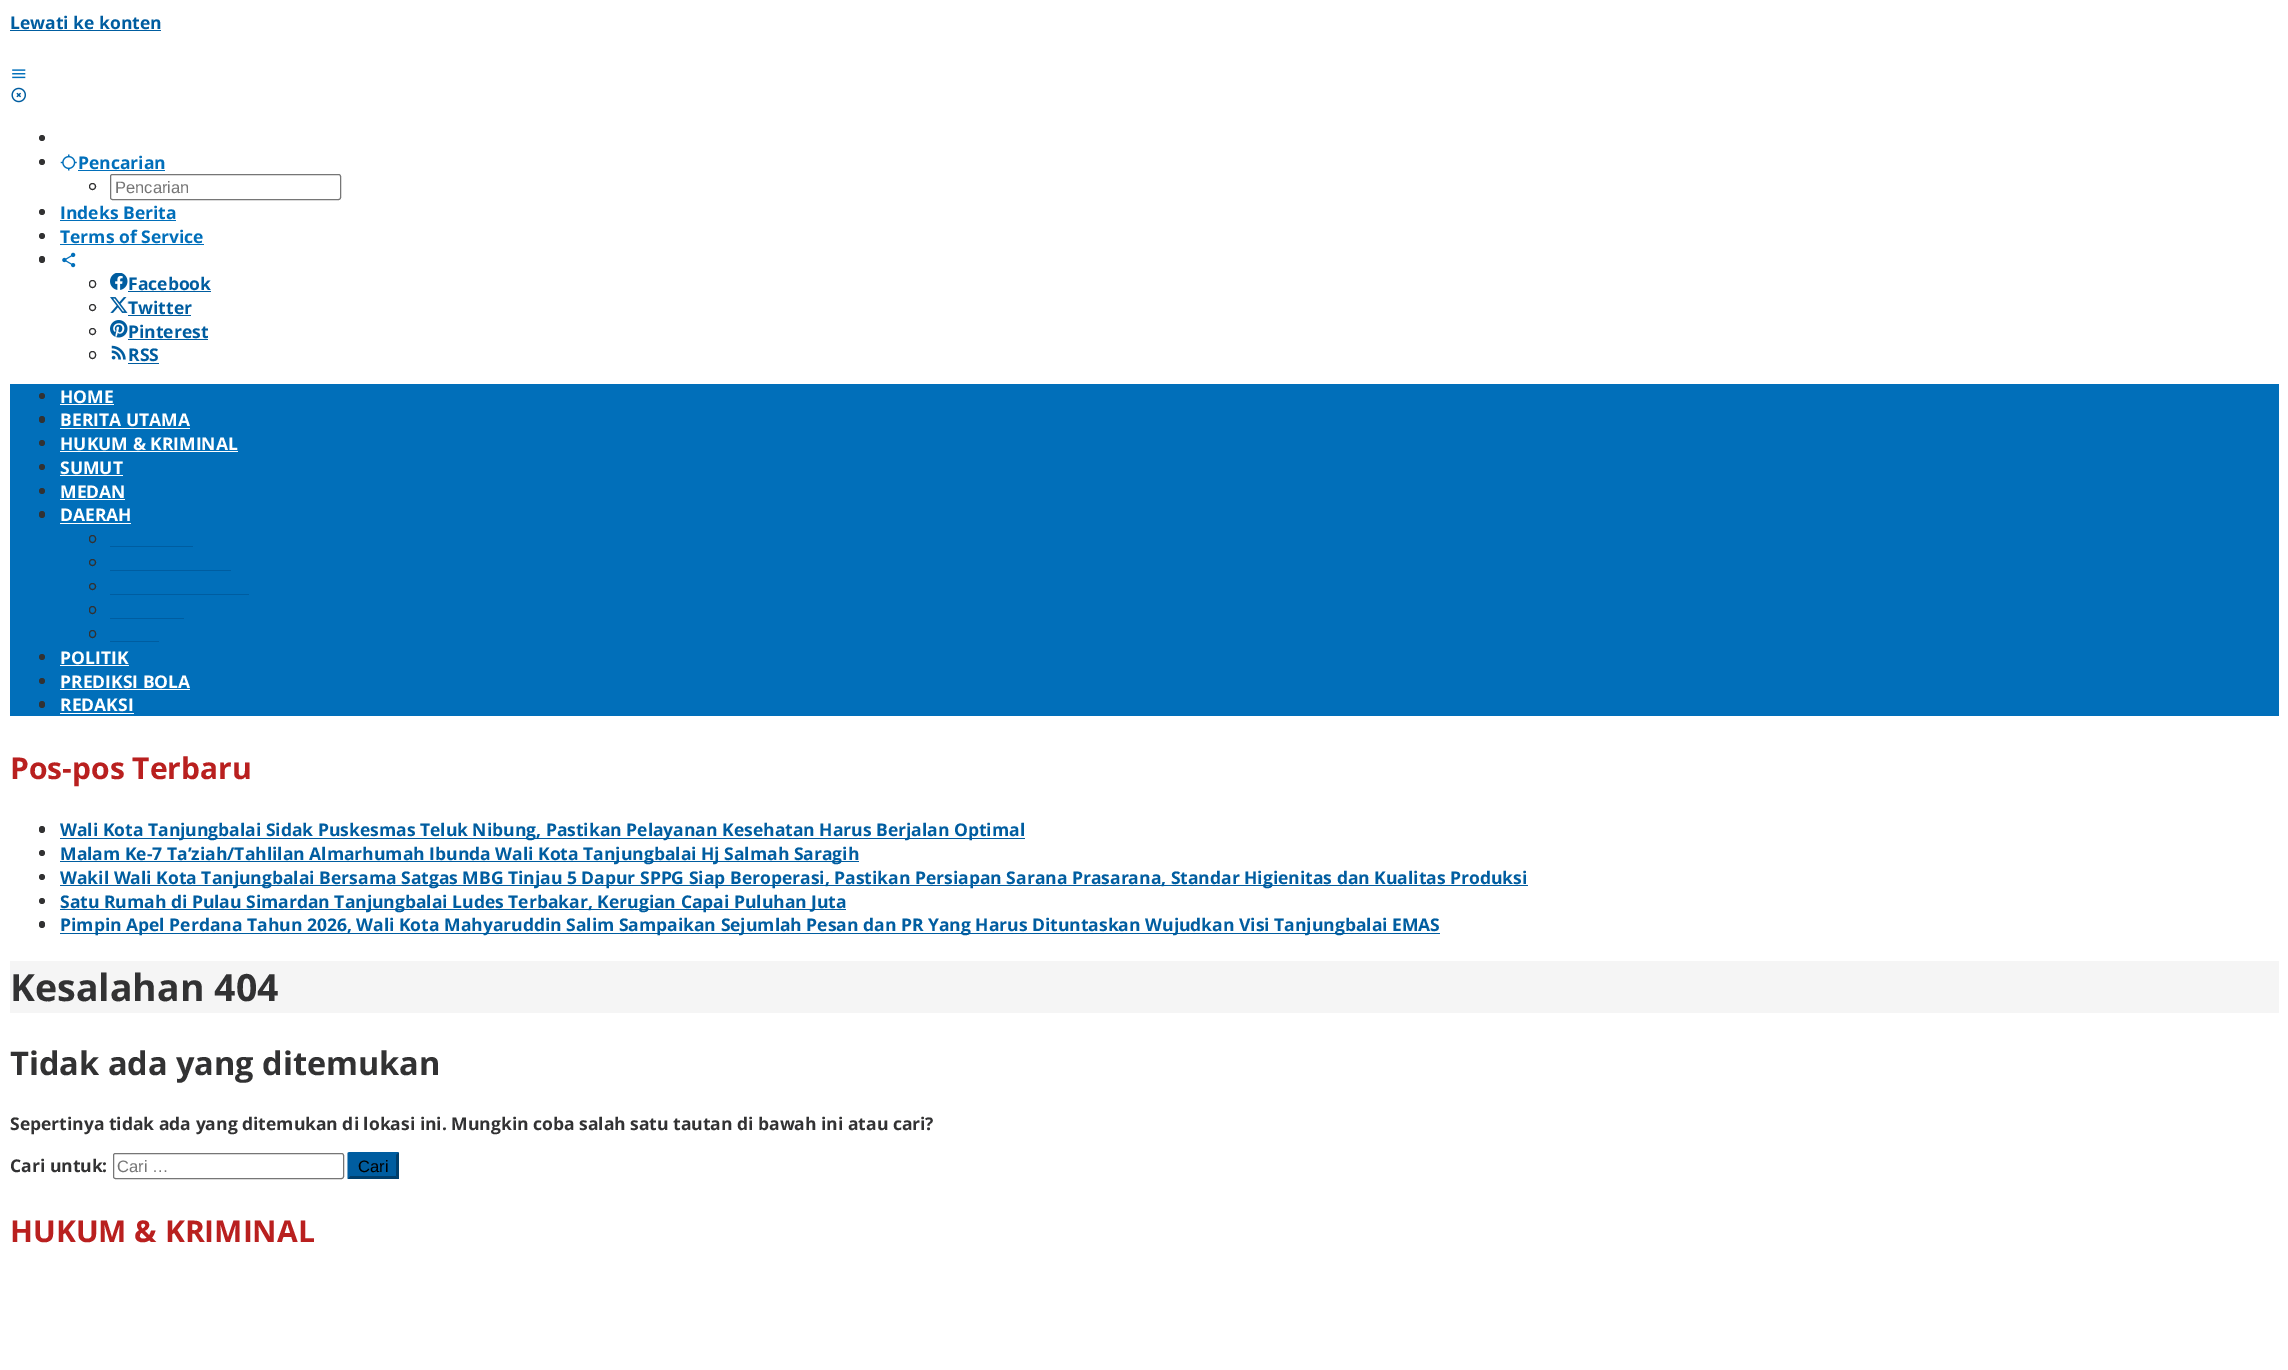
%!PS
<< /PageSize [2288 1370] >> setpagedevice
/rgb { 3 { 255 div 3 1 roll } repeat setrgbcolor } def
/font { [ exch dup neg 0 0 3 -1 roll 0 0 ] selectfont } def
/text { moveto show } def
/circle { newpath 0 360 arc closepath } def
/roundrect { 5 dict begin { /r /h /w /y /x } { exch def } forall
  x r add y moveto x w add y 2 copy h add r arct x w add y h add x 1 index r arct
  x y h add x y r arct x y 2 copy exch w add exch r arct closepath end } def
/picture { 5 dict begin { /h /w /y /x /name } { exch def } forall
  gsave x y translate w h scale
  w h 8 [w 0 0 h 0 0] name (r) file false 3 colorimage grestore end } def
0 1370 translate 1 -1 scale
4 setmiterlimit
255 255 255 rgb
0 0 2288 1370 rectfill
0 93 160 rgb
10 30 151 1 rectfill
(img_01.rgb) 12 69 14 10 picture
(img_02.rgb) 11 87 15 16 picture
50 50 51 rgb
42 138 3 circle fill
42 162 3 circle fill
(img_03.rgb) 60 154 17 17 picture
1 111 186 rgb
78 170 87 1 rectfill
50 50 51 rgb
92.5 186.5 3 circle stroke
118 118 118 rgb
110.5 174.5 230 25 2 roundrect stroke
50 50 51 rgb
42 212 3 circle fill
1 111 186 rgb
60 220 116 1 rectfill
50 50 51 rgb
42 236 3 circle fill
1 111 186 rgb
60 244 144 1 rectfill
50 50 51 rgb
39 256 6 7 3 roundrect fill
(img_04.rgb) 62 252 14 16 picture
89.5 280.5 6 7 3 roundrect stroke
(img_05.rgb) 110 273 18 17 picture
0 93 160 rgb
128 291 83 1 rectfill
50 50 51 rgb
92.5 307.5 3 circle stroke
0 93 160 rgb
128 315 63 1 rectfill
50 50 51 rgb
92.5 331.5 3 circle stroke
(img_07.rgb) 110 320 18 18 picture
0 93 160 rgb
128 339 80 1 rectfill
50 50 51 rgb
89.5 351.5 6 7 3 roundrect stroke
(img_08.rgb) 111 345 15 15 picture
0 93 160 rgb
128 363 31 1 rectfill
1 111 186 rgb
10 384 2269 332 rectfill
50 50 51 rgb
42 396 3 circle fill
255 255 255 rgb
60 404 54 1 rectfill
50 50 51 rgb
39 416 6 7 3 roundrect fill
255 255 255 rgb
60 428 130 1 rectfill
50 50 51 rgb
42 443 3 circle fill
255 255 255 rgb
60 451 178 1 rectfill
50 50 51 rgb
42 467 3 circle fill
255 255 255 rgb
60 475 63 1 rectfill
50 50 51 rgb
42 491 3 circle fill
255 255 255 rgb
60 499 65 1 rectfill
50 50 51 rgb
39 511 6 7 3 roundrect fill
255 255 255 rgb
60 523 71 1 rectfill
50 50 51 rgb
89.5 535.5 6 7 3 roundrect stroke
0 93 160 rgb
110 546 83 1 rectfill
50 50 51 rgb
92.5 562.5 3 circle stroke
0 93 160 rgb
110 570 121 1 rectfill
50 50 51 rgb
92.5 586.5 3 circle stroke
0 93 160 rgb
110 594 139 1 rectfill
50 50 51 rgb
89.5 606.5 6 7 3 roundrect stroke
0 93 160 rgb
110 618 74 1 rectfill
50 50 51 rgb
89.5 630.5 6 7 3 roundrect stroke
0 93 160 rgb
110 641 49 1 rectfill
50 50 51 rgb
42 657 3 circle fill
255 255 255 rgb
60 665 69 1 rectfill
50 50 51 rgb
42 681 3 circle fill
255 255 255 rgb
60 689 130 1 rectfill
50 50 51 rgb
39 701 6 7 3 roundrect fill
255 255 255 rgb
60 713 74 1 rectfill
50 50 51 rgb
39 826 6 7 3 roundrect fill
0 93 160 rgb
60 838 965 1 rectfill
50 50 51 rgb
42 853 3 circle fill
0 93 160 rgb
60 861 799 1 rectfill
50 50 51 rgb
42 877 3 circle fill
0 93 160 rgb
60 885 1468 1 rectfill
50 50 51 rgb
42 901 3 circle fill
0 93 160 rgb
60 909 786 1 rectfill
50 50 51 rgb
39 921 6 7 3 roundrect fill
0 93 160 rgb
60 933 1380 1 rectfill
245 245 245 rgb
10 961 2269 52 rectfill
118 118 118 rgb
113.5 1153.5 230 25 2 roundrect stroke
0 93 160 rgb
348 1153 51 26 rectfill
348 1152 moveto 51 0 rlineto -3 3 rlineto -46 0 rlineto closepath fill
0 62 107 rgb
399 1152.5 moveto 0 26.5 rlineto -3 -3 rlineto 0 -21 rlineto closepath fill
399 1179 moveto -51 0 rlineto 2 -3 rlineto 46 0 rlineto closepath fill
0 93 160 rgb
347.5 1179 moveto 0 -26.5 rlineto 2.5 2.5 rlineto 0 21 rlineto closepath fill
/OpenSans-Bold 17.5 font
(Lewati ke konten) 10 29 text
1 111 186 rgb
(Pencarian) 78 169 text
/LiberationSans-Regular 16.5 font
117 117 117 rgb
(Pencarian) 115 193 text
/OpenSans-Bold 17.5 font
1 111 186 rgb
(Indeks Berita) 60 219 text
(Terms of Service) 60 243 text
0 93 160 rgb
(Facebook) 128 290 text
(Twitter) 128 314 text
(img_06.rgb) 110 297 18 16 picture
(Pinterest) 128 338 text
(RSS) 128 361 text
255 255 255 rgb
(HOME) 60 403 text
(BERITA UTAMA) 60 426 text
(HUKUM & KRIMINAL) 60 450 text
(SUMUT) 60 474 text
(MEDAN) 60 498 text
(DAERAH) 60 521 text
(POLITIK) 60 664 text
(PREDIKSI BOLA) 60 688 text
(REDAKSI) 60 711 text
/OpenSans-Bold 30 font
185 32 31 rgb
(Pos-pos Terbaru) 10 779 text
/OpenSans-Bold 17.5 font
0 93 160 rgb
(Wali Kota Tanjungbalai Sidak Puskesmas Teluk Nibung, Pastikan Pelayanan Kesehatan Harus Berjalan Optimal) 60 836 text
(Malam Ke-7 Ta’ziah/Tahlilan Almarhumah Ibunda Wali Kota Tanjungbalai Hj Salmah Saragih) 60 860 text
(Wakil Wali Kota Tanjungbalai Bersama Satgas MBG Tinjau 5 Dapur SPPG Siap Beroperasi, Pastikan Persiapan Sarana Prasarana, Standar Higienitas dan Kualitas Produksi) 60 884 text
(Satu Rumah di Pulau Simardan Tanjungbalai Ludes Terbakar, Kerugian Capai Puluhan Juta) 60 908 text
(Pimpin Apel Perdana Tahun 2026, Wali Kota Mahyaruddin Salim Sampaikan Sejumlah Pesan dan PR Yang Harus Dituntaskan Wujudkan Visi Tanjungbalai EMAS) 60 931 text
/OpenSans-Bold 37.5 font
50 50 51 rgb
(Kesalahan 404) 10 1001 text
/OpenSans-Bold 32.5 font
(Tidak ada yang ditemukan) 10 1075 text
/OpenSans-Bold 17.5 font
(Sepertinya tidak ada yang ditemukan di lokasi ini. Mungkin coba salah satu tautan di bawah ini atau cari?) 10 1130 text
(Cari untuk:) 10 1172 text
/LiberationSans-Regular 16.5 font
117 117 117 rgb
(Cari …) 117 1172 text
0 0 0 rgb
(Cari) 358 1172 text
/OpenSans-Bold 30 font
185 32 31 rgb
(HUKUM & KRIMINAL) 10 1242 text
showpage
